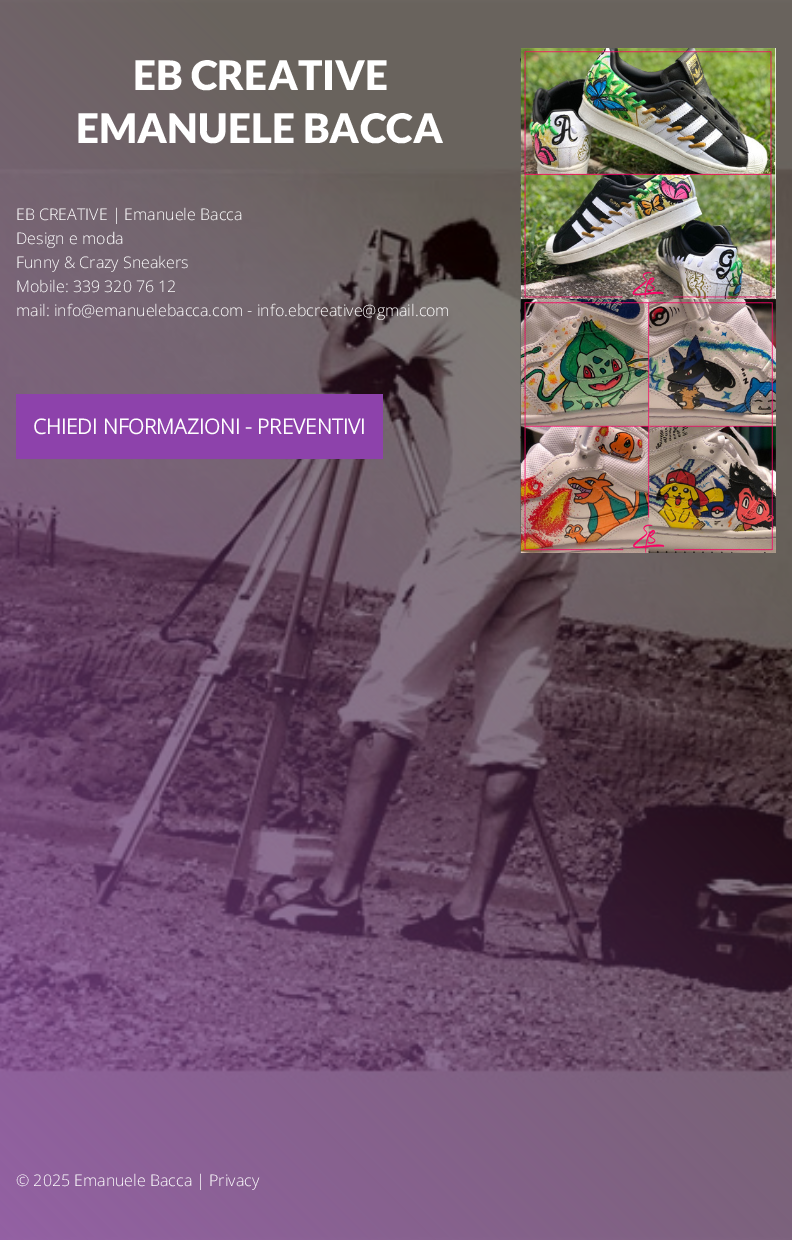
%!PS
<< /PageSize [792 1240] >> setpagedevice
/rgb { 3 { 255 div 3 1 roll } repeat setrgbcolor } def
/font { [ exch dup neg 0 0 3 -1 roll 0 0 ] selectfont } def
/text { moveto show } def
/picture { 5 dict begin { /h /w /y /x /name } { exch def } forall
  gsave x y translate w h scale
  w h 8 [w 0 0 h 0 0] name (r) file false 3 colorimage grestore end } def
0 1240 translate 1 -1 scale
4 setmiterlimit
255 255 255 rgb
0 0 792 1240 rectfill
(img_01.rgb) 0 0 792 1240 picture
141 66 171 rgb
16 394 367 65 rectfill
(img_02.rgb) 520 48 256 251 picture
(img_03.rgb) 520 299 256 254 picture
/Lato-Black 40.75 font
255 255 255 rgb
(EB CREATIVE) 133 90 text
(EMANUELE BACCA) 76 143 text
/OpenSans-Light 16 font
(EB CREATIVE | Emanuele Bacca) 16 220 text
(Design e moda) 16 244 text
(Funny & Crazy Sneakers) 16 268 text
(Mobile: 339 320 76 12) 16 292 text
(mail: info@emanuelebacca.com - info.ebcreative@gmail.com) 16 316 text
/OpenSans-Bold 20.75 font
(CHIEDI NFORMAZIONI - PREVENTIVI) 33 434 text
/OpenSans-Light 16 font
(© 2025 Emanuele Bacca | Privacy) 16 1186 text
showpage
